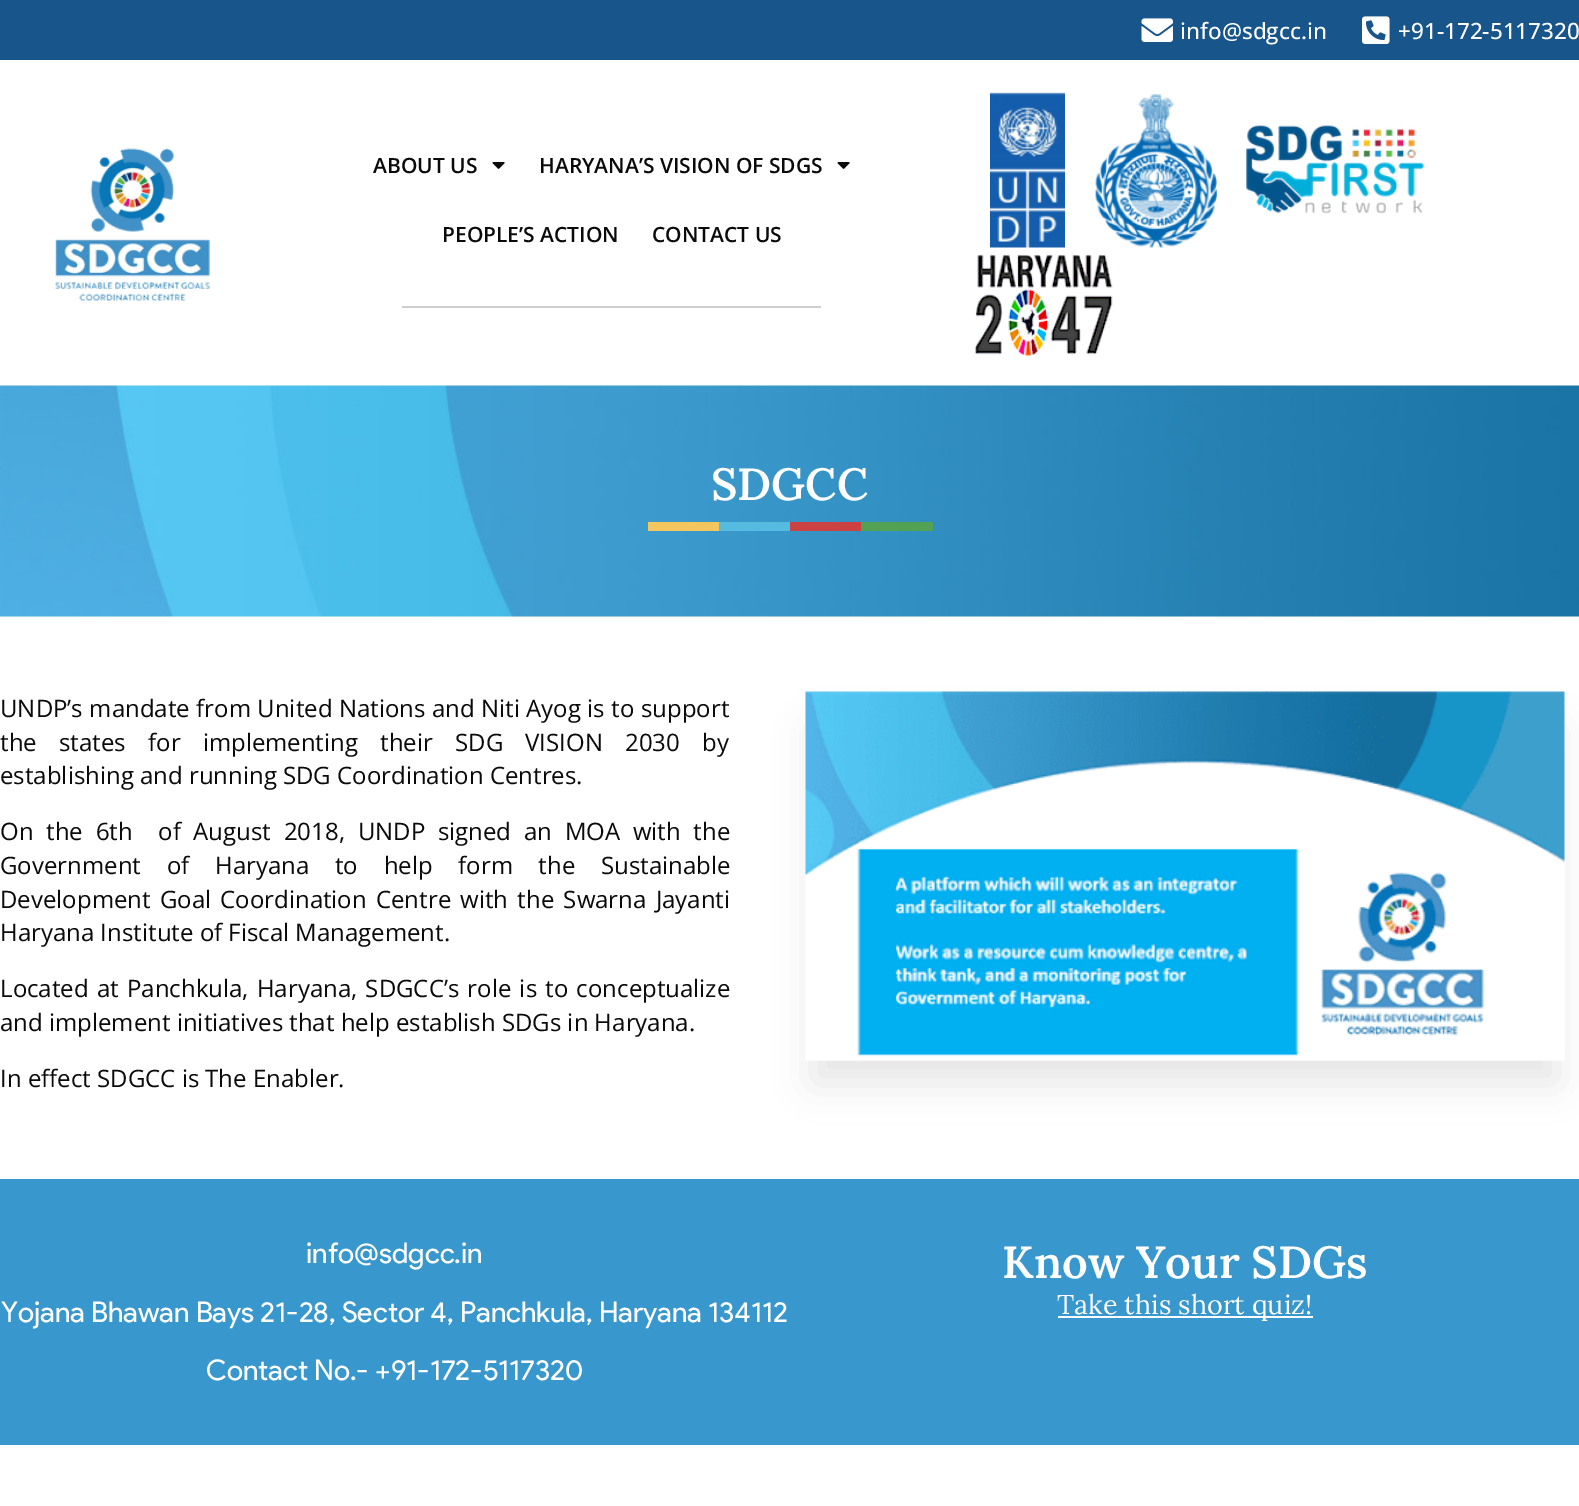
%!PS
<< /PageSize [1579 1506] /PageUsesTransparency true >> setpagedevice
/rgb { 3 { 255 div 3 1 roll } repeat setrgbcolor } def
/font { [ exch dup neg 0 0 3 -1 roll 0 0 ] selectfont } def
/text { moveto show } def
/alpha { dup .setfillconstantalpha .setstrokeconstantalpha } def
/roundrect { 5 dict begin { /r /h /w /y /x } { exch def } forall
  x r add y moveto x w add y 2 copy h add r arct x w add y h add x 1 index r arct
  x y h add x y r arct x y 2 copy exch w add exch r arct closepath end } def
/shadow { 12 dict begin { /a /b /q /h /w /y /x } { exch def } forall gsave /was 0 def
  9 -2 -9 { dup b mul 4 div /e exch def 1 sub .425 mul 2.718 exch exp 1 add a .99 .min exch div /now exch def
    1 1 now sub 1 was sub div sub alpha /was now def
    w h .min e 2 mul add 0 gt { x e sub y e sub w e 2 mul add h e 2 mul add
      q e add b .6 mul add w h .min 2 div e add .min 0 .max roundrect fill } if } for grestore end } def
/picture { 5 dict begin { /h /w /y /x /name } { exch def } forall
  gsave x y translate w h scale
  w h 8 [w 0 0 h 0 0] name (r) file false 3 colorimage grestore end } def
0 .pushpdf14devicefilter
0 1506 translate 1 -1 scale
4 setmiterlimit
255 255 255 rgb
0 0 1579 1506 rectfill
23 85 139 rgb
0 0 1579 60 rectfill
(img_01.rgb) 1141 18 32 24 picture
(img_02.rgb) 1362 16 28 28 picture
(img_03.rgb) 55 148 155 154 picture
(img_04.rgb) 492 162 13 7 picture
(img_04.rgb) 837 162 13 7 picture
207 207 207 rgb
402 306 419 2 rectfill
(img_05.rgb) 990 92 75 156 picture
(img_06.rgb) 1095 94 122 154 picture
(img_07.rgb) 1246 124 178 90 picture
(img_08.rgb) 975 254 138 102 picture
248 249 249 rgb
0 616 1579 1 rectfill
(img_09.rgb) 0 385 1579 232 picture
246 198 94 rgb
648 522 71 9 rectfill
86 187 224 rgb
719 522 71 9 rectfill
204 66 66 rgb
790 522 71 9 rectfill
82 161 84 rgb
861 522 72 9 rectfill
gsave
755 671 moveto 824 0 rlineto 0 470 rlineto -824 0 rlineto closepath 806 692 moveto 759 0 rlineto 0 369 rlineto -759 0 rlineto closepath eoclip newpath
0 0 0 rgb
813 729 744 354 0 19 0.1 shadow
grestore
(img_10.rgb) 805 691 760 370 picture
56 151 204 rgb
0 1179 1579 266 rectfill
255 255 255 rgb
1058 1316 255 2 rectfill
/OpenSans-Medium 22.5 font
(info@sdgcc.in) 1180 39 text
(+91-172-5117320) 1398 39 text
/OpenSans-SemiBold 21 font
10 10 10 rgb
(ABOUT US) 373 173 text
(HARYANA’S VISION OF SDGS) 539 173 text
(PEOPLE’S ACTION) 442 242 text
(CONTACT US) 652 242 text
/Lora-SemiBold 45 font
255 255 255 rgb
(SDGCC) 711 500 text
/OpenSans-Regular 24 font
10 10 10 rgb
0 717 moveto 0.25 0 32 (UNDP’s mandate from United Nations and Niti Ayog is to support) widthshow
0 751 moveto 16 0 32 (the states for implementing their SDG VISION 2030 by) widthshow
(establishing and running SDG Coordination Centres.) 0 784 text
0 840 moveto 6.5 0 32 (On the 6th  of August 2018, UNDP signed an MOA with the) widthshow
0 874 moveto 19.5 0 32 (Government of Haryana to help form the Sustainable) widthshow
0 908 moveto 3 0 32 (Development Goal Coordination Centre with the Swarna Jayanti) widthshow
(Haryana Institute of Fiscal Management.) 0 941 text
0 997 moveto 2 0 32 (Located at Panchkula, Haryana, SDGCC’s role is to conceptualize) widthshow
(and implement initiatives that help establish SDGs in Haryana.) 0 1031 text
(In effect SDGCC is The Enabler.) 0 1087 text
/ProductSans-Regular 28.5 font
255 255 255 rgb
(info@sdgcc.in) 306 1263 text
(Yojana Bhawan Bays 21-28, Sector 4, Panchkula, Haryana 134112) 1 1322 text
(Contact No.- +91-172-5117320) 206 1380 text
/Lora-SemiBold 45 font
(Know Your SDGs) 1002 1278 text
/Lora-Regular 27 font
(Take this short quiz!) 1057 1314 text
.poppdf14devicefilter showpage
